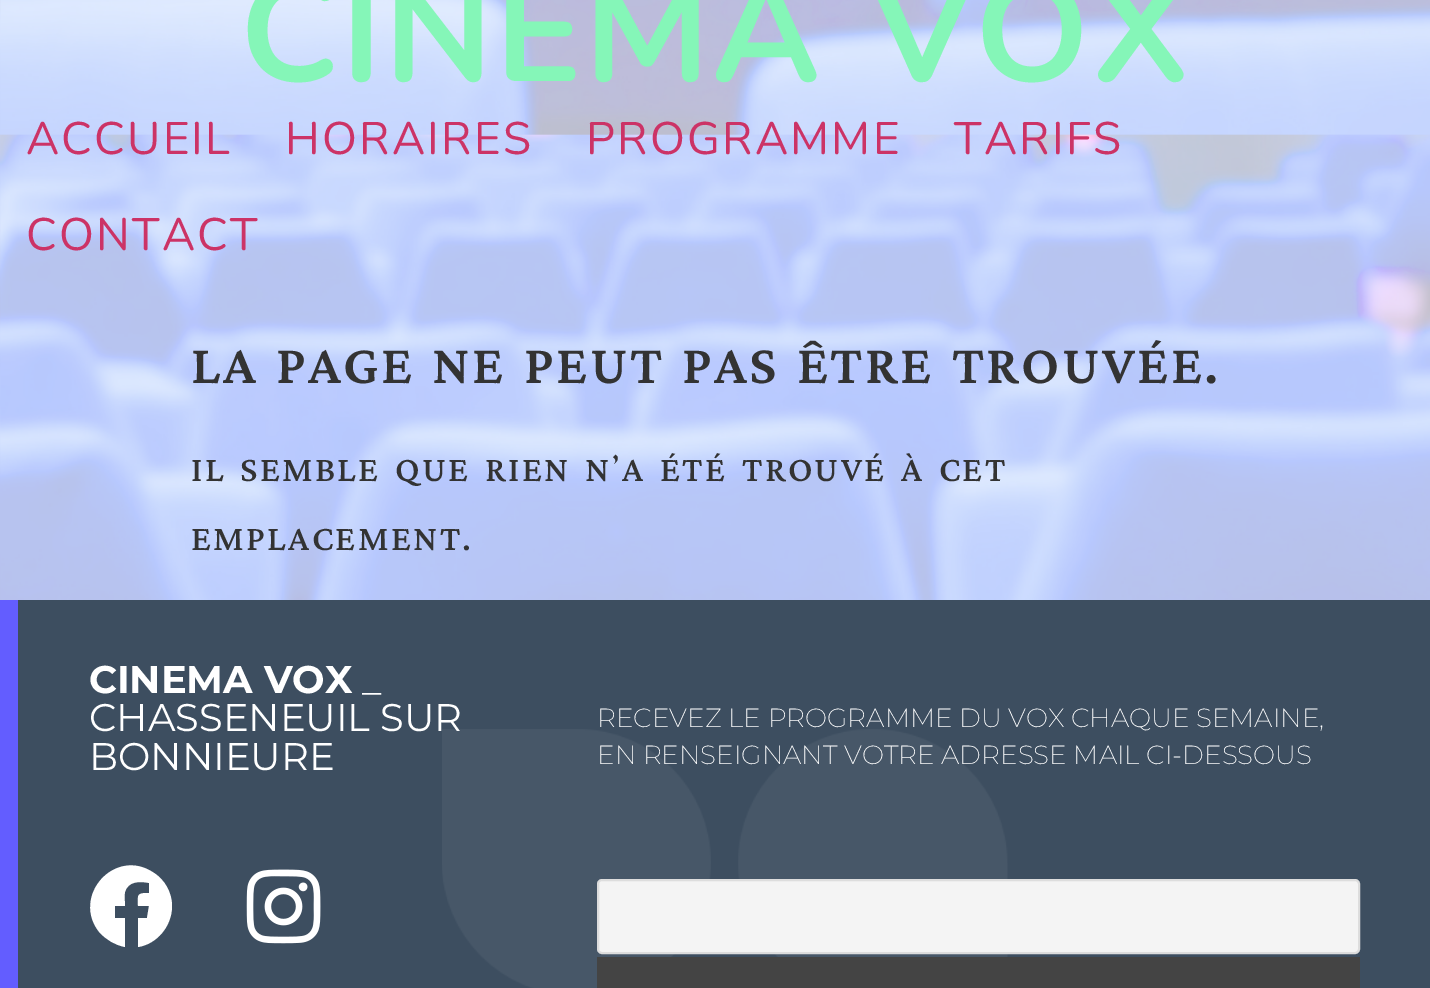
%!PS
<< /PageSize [1430 988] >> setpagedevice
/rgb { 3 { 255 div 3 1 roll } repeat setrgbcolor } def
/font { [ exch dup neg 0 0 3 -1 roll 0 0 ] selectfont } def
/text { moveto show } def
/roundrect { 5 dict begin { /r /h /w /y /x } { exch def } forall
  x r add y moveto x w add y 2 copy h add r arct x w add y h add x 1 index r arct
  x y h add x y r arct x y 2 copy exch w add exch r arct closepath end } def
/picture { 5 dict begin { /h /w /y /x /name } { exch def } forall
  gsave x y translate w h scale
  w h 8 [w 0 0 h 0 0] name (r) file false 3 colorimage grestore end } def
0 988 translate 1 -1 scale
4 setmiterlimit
255 255 255 rgb
0 0 1430 988 rectfill
(img_01.rgb) 0 0 1430 600 picture
61 78 96 rgb
18 600 1412 388 rectfill
99 93 255 rgb
0 600 18 388 rectfill
255 255 255 rgb
172 906 moveto 0 20 -15 38 -34 41 rcurveto 0 -29 rlineto 9 0 rlineto 2 -12 rlineto -11 0 rlineto 0 -11 -2 -13 11 -13 rcurveto 0 -10 rlineto -9 -2 -21 -2 -24 9 rcurveto -1 5 0 10 0 14 rcurveto -10 0 rlineto 0 12 rlineto 10 0 rlineto 0 29 rlineto -10 -2 -18 -7 -25 -14 rcurveto -30 -36 15 -87 54 -60 rcurveto 11 7 18 20 18 33 rcurveto closepath fill
(img_02.rgb) 246 869 75 75 picture
(img_03.rgb) 442 729 566 259 picture
244 244 244 rgb
598 880 761 73 4 roundrect gsave fill grestore
221 221 221 rgb
2 setlinewidth
stroke
68 68 68 rgb
597 957 763 31 rectfill
/Nunito-Bold 145.25 font
133 246 184 rgb
240 81 moveto 5.25 0 32 2.25 0 (CINÉMA VOX) awidthshow
/Nunito-Regular 45.5 font
204 51 102 rgb
26 154 moveto 2.25 0 (ACCUEIL) ashow
285 154 moveto 2.25 0 (HORAIRES) ashow
586 154 moveto 2.25 0 (PROGRAMME) ashow
954 154 moveto 2.25 0 (TARIFS) ashow
26 250 moveto 2.25 0 (CONTACT) ashow
/Lateef-Medium 70 font
51 51 51 rgb
191 383 moveto 5.25 0 32 2.25 0 (LA PAGE NE PEUT PAS ÊTRE TROUVÉE.) awidthshow
/Lateef-Regular 45.5 font
191 481 moveto 5.25 0 32 2.25 0 (IL SEMBLE QUE RIEN N’A ÉTÉ TROUVÉ À CET) awidthshow
191 550 moveto 2.25 0 (EMPLACEMENT.) ashow
/Montserrat-Bold 38.5 font
255 255 255 rgb
(CINEMA VOX) 89 693 text
/Montserrat-Regular 38.5 font
(_) 362 693 text
(CHASSENEUIL SUR) 89 731 text
(BONNIEURE) 89 770 text
/Montserrat-ExtraLight 26.25 font
(RECEVEZ LE PROGRAMME DU VOX CHAQUE SEMAINE,) 597 727 text
(EN RENSEIGNANT VOTRE ADRESSE MAIL CI-DESSOUS) 597 764 text
showpage
